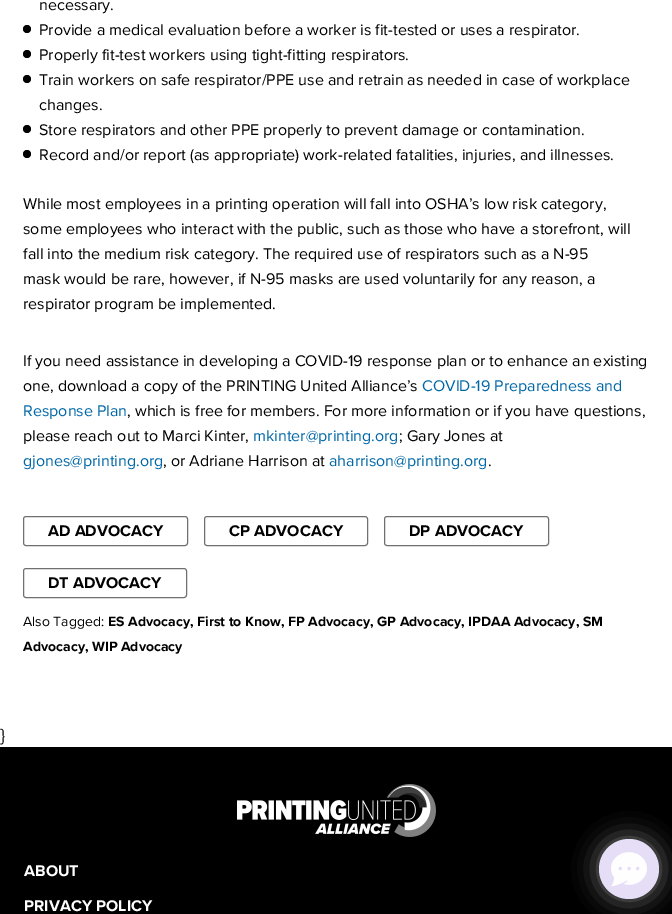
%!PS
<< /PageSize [672 914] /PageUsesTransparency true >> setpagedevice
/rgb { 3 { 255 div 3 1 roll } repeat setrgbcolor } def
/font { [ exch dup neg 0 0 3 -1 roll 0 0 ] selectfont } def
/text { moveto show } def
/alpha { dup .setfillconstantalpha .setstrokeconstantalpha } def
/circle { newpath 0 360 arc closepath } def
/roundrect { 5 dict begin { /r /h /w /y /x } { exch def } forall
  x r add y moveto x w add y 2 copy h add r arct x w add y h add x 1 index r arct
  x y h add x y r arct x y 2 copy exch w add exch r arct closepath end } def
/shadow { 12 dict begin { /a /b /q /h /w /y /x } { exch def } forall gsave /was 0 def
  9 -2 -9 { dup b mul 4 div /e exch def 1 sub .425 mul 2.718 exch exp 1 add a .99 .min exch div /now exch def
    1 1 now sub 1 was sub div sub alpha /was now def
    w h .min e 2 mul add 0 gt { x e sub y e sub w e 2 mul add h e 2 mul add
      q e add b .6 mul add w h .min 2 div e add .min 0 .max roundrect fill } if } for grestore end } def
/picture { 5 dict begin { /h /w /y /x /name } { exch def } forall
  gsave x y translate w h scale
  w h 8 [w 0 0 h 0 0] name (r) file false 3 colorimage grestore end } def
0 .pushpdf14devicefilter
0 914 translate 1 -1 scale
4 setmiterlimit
255 255 255 rgb
0 0 672 914 rectfill
0 0 0 rgb
27 29 4 circle fill
27 54 4 circle fill
27 79 4 circle fill
27 129 4 circle fill
27 154 4 circle fill
112 112 112 rgb
23.5 516.5 164 29 2.5 roundrect stroke
204.5 516.5 163 29 2.5 roundrect stroke
384.5 516.5 164 29 2.5 roundrect stroke
23.5 568.5 163 29 2.5 roundrect stroke
0 0 0 rgb
0 747 672 167 rectfill
(img_01.rgb) 237 784 199 53 picture
122 122 122 rgb
599 839 60 60 30 12.5 1 shadow
230 221 247 rgb
629 869 30 circle fill
(img_02.rgb) 611 852 36 35 picture
/ProximaNova-Regular 16 font
0 0 0 rgb
(necessary.) 39 10 text
(Provide a medical evaluation before a worker is fit-tested or uses a respirator.) 39 35 text
(Properly fit-test workers using tight-fitting respirators.) 39 60 text
(Train workers on safe respirator/PPE use and retrain as needed in case of workplace) 39 85 text
(changes.) 39 110 text
(Store respirators and other PPE properly to prevent damage or contamination.) 39 135 text
(Record and/or report \(as appropriate\) work-related fatalities, injuries, and illnesses.) 39 160 text
(While most employees in a printing operation will fall into OSHA’s low risk category,) 23 209 text
(some employees who interact with the public, such as those who have a storefront, will) 23 234 text
(fall into the medium risk category. The required use of respirators such as a N-95) 23 259 text
(mask would be rare, however, if N-95 masks are used voluntarily for any reason, a) 23 284 text
(respirator program be implemented.) 23 309 text
(If you need assistance in developing a COVID-19 response plan or to enhance an existing) 23 366 text
(one, download a copy of the PRINTING United Alliance’s) 23 391 text
0 103 166 rgb
(COVID-19 Preparedness and) 422 391 text
(Response Plan) 23 416 text
0 0 0 rgb
(, which is free for members. For more information or if you have questions,) 127 416 text
(please reach out to Marci Kinter,) 23 441 text
0 103 166 rgb
(mkinter@printing.org) 253 441 text
0 0 0 rgb
(; Gary Jones at) 399 441 text
0 103 166 rgb
(gjones@printing.org) 23 466 text
0 0 0 rgb
(, or Adriane Harrison at) 163 466 text
0 103 166 rgb
(aharrison@printing.org) 329 466 text
0 0 0 rgb
(.) 488 466 text
/ProximaNova-Bold 16 font
(AD ADVOCACY) 48 536 text
(CP ADVOCACY) 229 536 text
(DP ADVOCACY) 409 536 text
(DT ADVOCACY) 48 588 text
/ProximaNova-Regular 14 font
(Also Tagged:) 23 626 text
/ProximaNova-Bold 14 font
(ES Advocacy, First to Know, FP Advocacy, GP Advocacy, IPDAA Advocacy, SM) 108 626 text
(Advocacy, WIP Advocacy) 23 651 text
/ProximaNova-Regular 18 font
(}) 0 741 text
/ProximaNova-Bold 16 font
255 255 255 rgb
(ABOUT) 24 876 text
(PRIVACY POLICY) 24 911 text
.poppdf14devicefilter showpage
